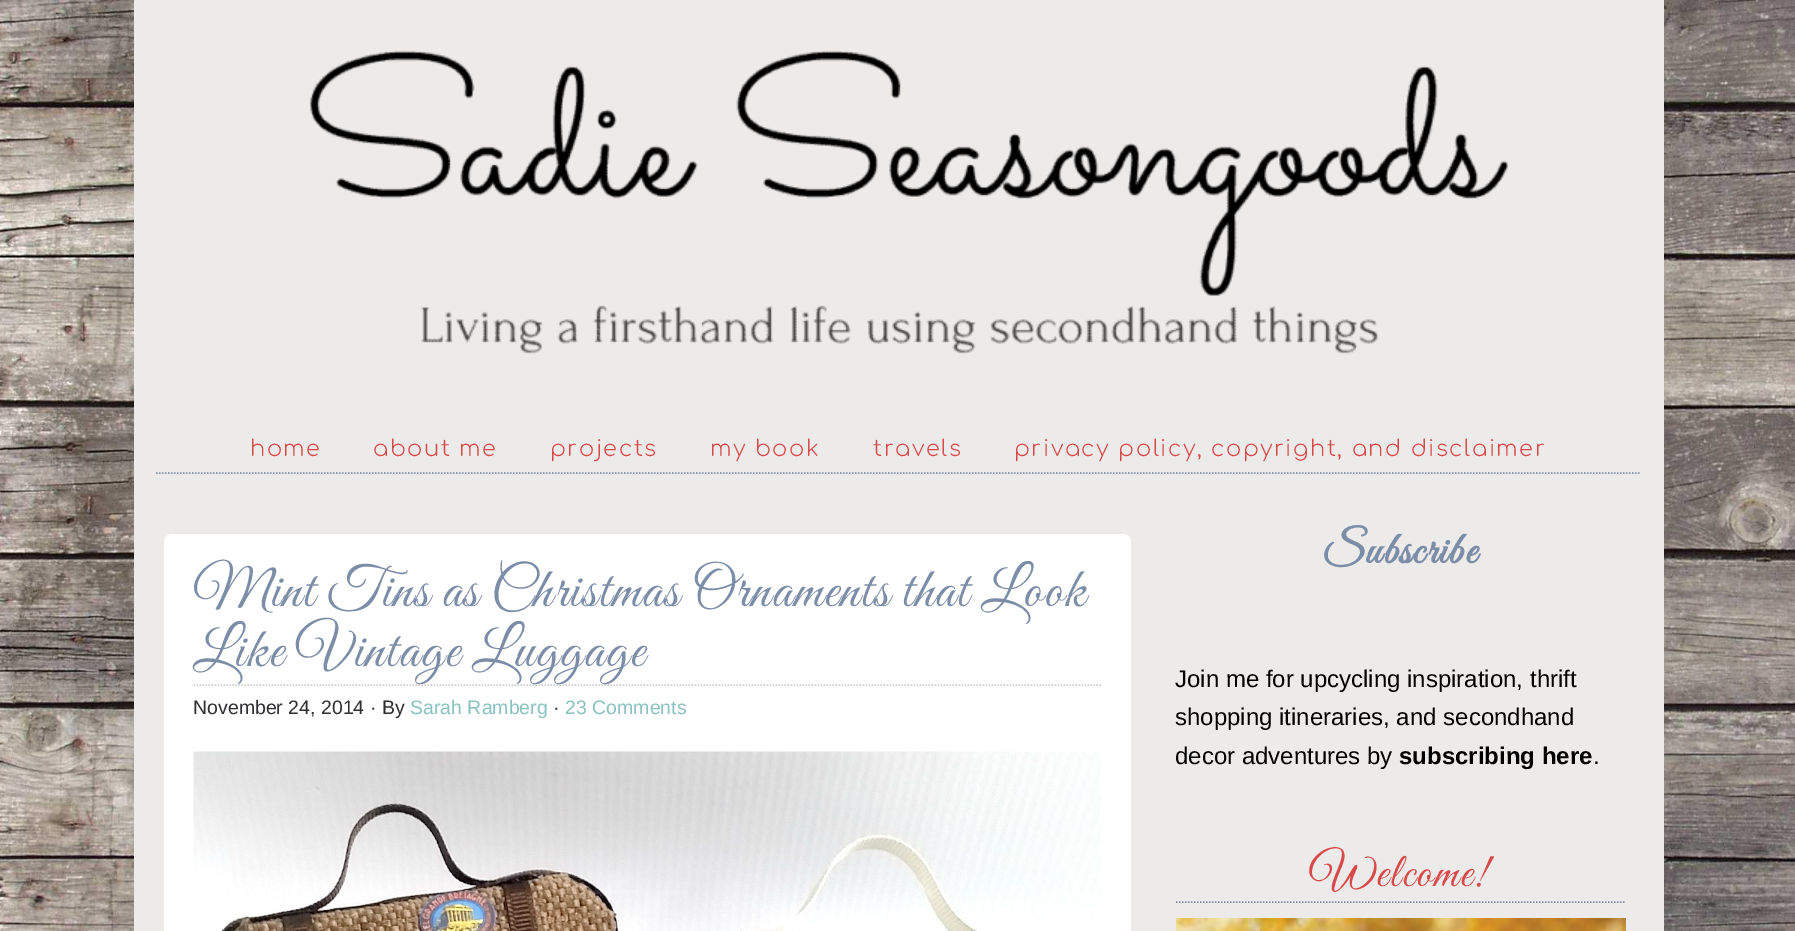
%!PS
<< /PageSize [1795 931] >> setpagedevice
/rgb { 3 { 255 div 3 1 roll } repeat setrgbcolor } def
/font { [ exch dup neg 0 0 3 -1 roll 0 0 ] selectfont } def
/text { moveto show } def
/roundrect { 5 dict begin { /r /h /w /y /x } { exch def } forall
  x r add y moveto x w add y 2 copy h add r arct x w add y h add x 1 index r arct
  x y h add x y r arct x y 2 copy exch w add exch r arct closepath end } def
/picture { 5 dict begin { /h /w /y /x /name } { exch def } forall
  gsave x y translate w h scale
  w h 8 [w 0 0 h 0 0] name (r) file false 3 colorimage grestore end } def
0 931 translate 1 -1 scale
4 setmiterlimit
255 255 255 rgb
0 0 1795 931 rectfill
(img_01.rgb) 0 0 1795 931 picture
237 235 234 rgb
134 0 1530 931 rectfill
(img_02.rgb) 310 50 1198 304 picture
124 141 168 rgb
1.5 setlinewidth
[1.5 1.5] 0 setdash
156 473 moveto 1485 0 rlineto stroke
255 255 255 rgb
164 534 967 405 8 roundrect fill
204 204 204 rgb
193.5 685 moveto 907.5 0 rlineto stroke
(img_03.rgb) 193 751 908 180 picture
124 141 168 rgb
1176 902 moveto 450 0 rlineto stroke
(img_04.rgb) 1176 918 450 13 picture
/Comfortaa-Light 22.5 font
217 73 73 rgb
250 456 moveto 1.5 0 (home) ashow
373 456 moveto 1.5 0 (about me) ashow
550 456 moveto 1.5 0 (projects) ashow
710 456 moveto 1.5 0 (my book) ashow
873 456 moveto 1.5 0 (travels) ashow
1014 456 moveto 1.5 0 (privacy policy, copyright, and disclaimer) ashow
/GreatVibes-Regular 57 font
124 141 168 rgb
193 606 moveto -0.25 0 32 1.5 0 (Mint Tins as Christmas Ornaments that Look) awidthshow
193 666 moveto 1.5 0 (Like Vintage Luggage) ashow
/LiberationSans-Regular 19.5 font
47 47 50 rgb
(November 24, 2014 · By) 193 714 text
137 194 191 rgb
(Sarah Ramberg) 410 714 text
47 47 50 rgb
(·) 553 714 text
137 194 191 rgb
(23 Comments) 565 714 text
/GreatVibes-Bold 45 font
124 141 168 rgb
1322 563 moveto 1.5 0 (Subscribe) ashow
/LiberationSans-Regular 24 font
0 0 0 rgb
(Join me for upcycling inspiration, thrift) 1175 687 text
(shopping itineraries, and secondhand) 1175 725 text
(decor adventures by) 1175 764 text
/LiberationSans-Bold 24 font
(subscribing here) 1399 764 text
/LiberationSans-Regular 24 font
(.) 1593 764 text
/GreatVibes-Regular 48 font
217 73 73 rgb
1310 886 moveto 1.5 0 (Welcome!) ashow
showpage
